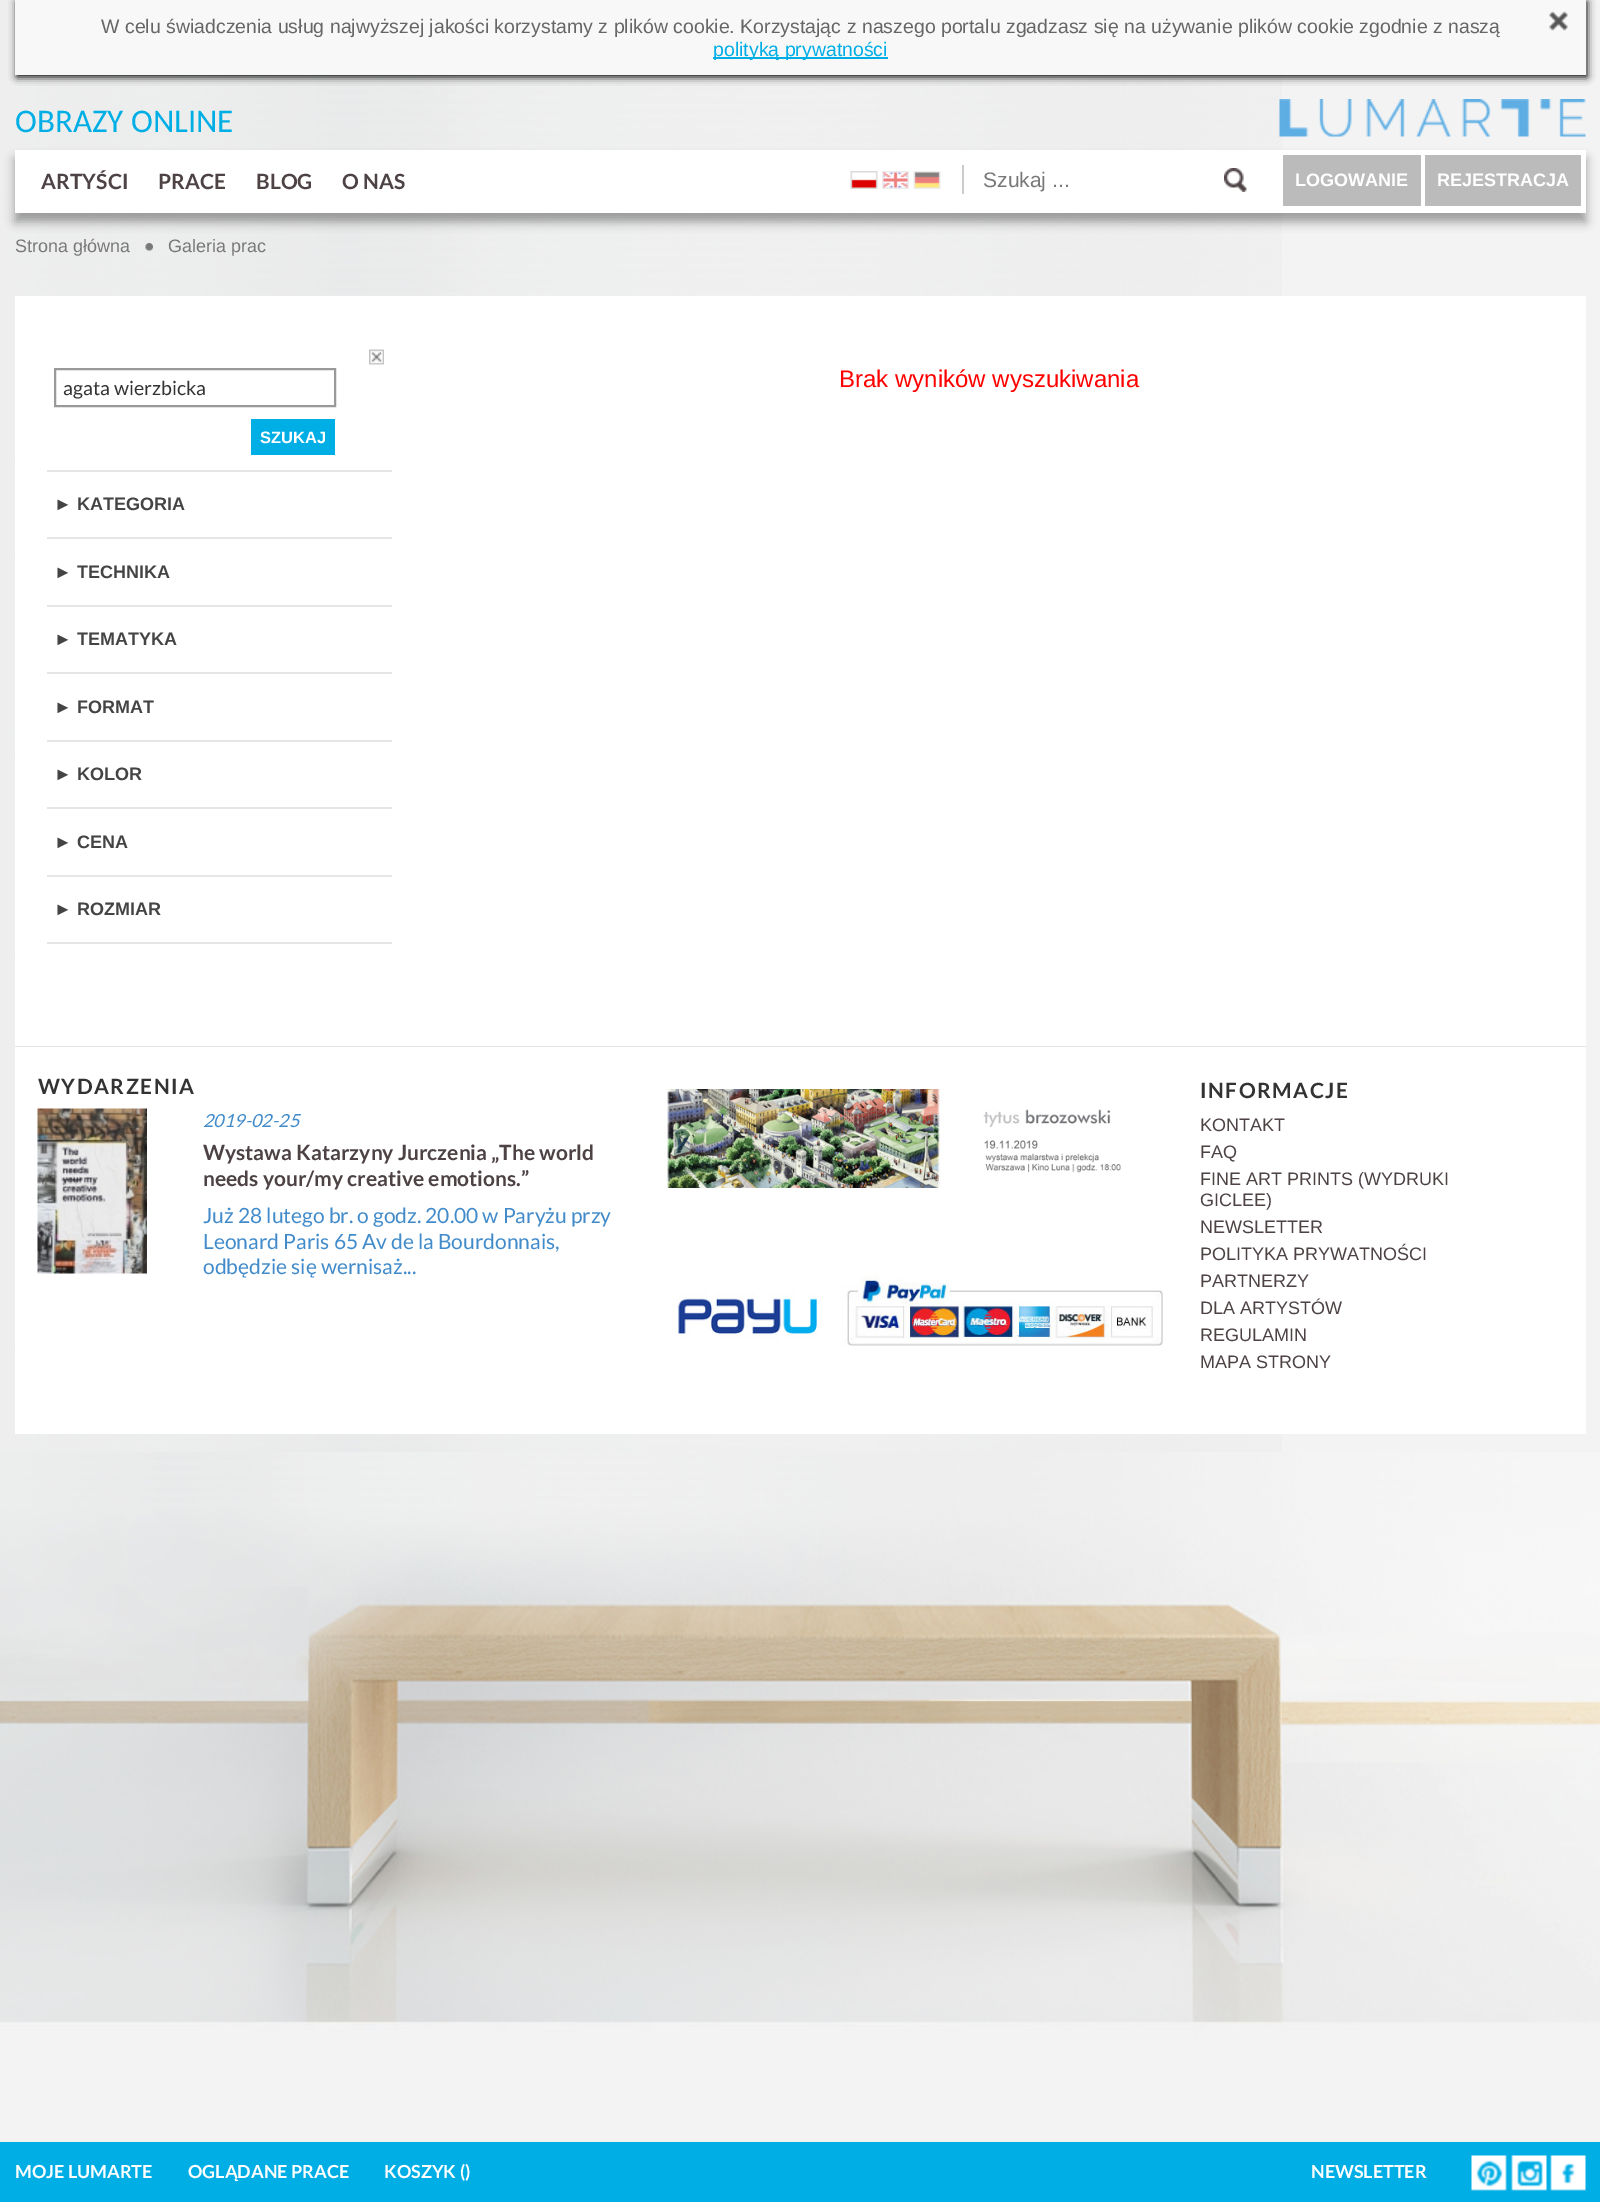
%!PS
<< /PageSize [1600 2202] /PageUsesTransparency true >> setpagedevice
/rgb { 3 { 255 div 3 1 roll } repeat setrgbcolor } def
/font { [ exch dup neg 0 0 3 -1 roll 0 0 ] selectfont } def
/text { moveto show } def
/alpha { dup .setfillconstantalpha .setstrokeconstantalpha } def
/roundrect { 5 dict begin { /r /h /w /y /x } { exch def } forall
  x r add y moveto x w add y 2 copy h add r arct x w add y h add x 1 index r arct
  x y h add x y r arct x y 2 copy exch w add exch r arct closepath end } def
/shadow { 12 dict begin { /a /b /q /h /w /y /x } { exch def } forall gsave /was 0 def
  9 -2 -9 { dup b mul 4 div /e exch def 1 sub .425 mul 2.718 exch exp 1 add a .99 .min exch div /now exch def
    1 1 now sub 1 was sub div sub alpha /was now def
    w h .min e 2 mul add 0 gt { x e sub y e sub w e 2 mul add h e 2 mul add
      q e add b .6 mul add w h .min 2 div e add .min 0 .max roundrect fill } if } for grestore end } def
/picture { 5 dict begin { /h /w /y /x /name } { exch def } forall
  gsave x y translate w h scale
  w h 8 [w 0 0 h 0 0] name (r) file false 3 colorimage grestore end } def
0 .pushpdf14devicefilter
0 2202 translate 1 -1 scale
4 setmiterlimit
243 243 243 rgb
0 0 1600 2202 rectfill
(img_01.rgb) 0 0 1282 1452 picture
(img_02.rgb) 0 1452 1600 690 picture
0 0 0 rgb
17 2 1570 75 0 4 1 shadow
248 248 248 rgb
15 0 1571 75 rectfill
(img_03.rgb) 1549 11 19 20 picture
0 174 230 rgb
713 57 175 2 rectfill
(img_04.rgb) 1279 99 307 38 picture
0 0 0 rgb
15 159 1571 63 0 5 0.35 shadow
255 255 255 rgb
15 150 1571 63 rectfill
(img_05.rgb) 850 171 28 18 picture
(img_06.rgb) 882 171 27 18 picture
(img_07.rgb) 913 171 28 18 picture
204 204 204 rgb
962 165 2 29 rectfill
(img_08.rgb) 1224 168 23 24 picture
187 187 187 rgb
1283 155 138 51 rectfill
1425 155 156 51 rectfill
(img_09.rgb) 145 243 8 8 picture
255 255 255 rgb
15 296 1571 750 rectfill
229 229 229 rgb
15 1046 1571 1 rectfill
47 470 345 2 rectfill
(img_10.rgb) 369 349 15 16 picture
153 153 153 rgb
2 setlinewidth
55 369 280 37 rectstroke
0 174 230 rgb
251 419 84 36 rectfill
229 229 229 rgb
47 537 345 2 rectfill
47 605 345 2 rectfill
47 672 345 2 rectfill
47 740 345 2 rectfill
47 807 345 2 rectfill
47 875 345 2 rectfill
47 942 345 2 rectfill
255 255 255 rgb
15 1047 1571 387 rectfill
(img_11.rgb) 37 1108 110 166 picture
(img_12.rgb) 667 1089 454 99 picture
(img_13.rgb) 677 1275 486 71 picture
0 174 230 rgb
0 2142 1600 60 rectfill
(img_14.rgb) 1471 2155 36 36 picture
(img_15.rgb) 1511 2155 36 36 picture
(img_16.rgb) 1550 2155 36 36 picture
/LiberationSans-Regular 19.5 font
102 102 102 rgb
(W celu świadczenia usług najwyższej jakości korzystamy z plików cookie. Korzystając z naszego portalu zgadzasz się na używanie plików cookie zgodnie z naszą) 101 33 text
0 174 230 rgb
(polityką prywatności) 713 56 text
/Carlito-Regular 33 font
(OBRAZY ONLINE) 15 132 text
/Lato-Bold 21 font
77 66 68 rgb
(ARTYŚCI) 41 189 text
(PRACE) 158 189 text
(BLOG) 256 189 text
(O NAS) 342 189 text
/LiberationSans-Regular 21 font
120 120 120 rgb
(Szukaj ...) 983 187 text
/LiberationSans-Bold 18 font
255 255 255 rgb
(LOGOWANIE) 1295 186 text
(REJESTRACJA) 1437 186 text
/LiberationSans-Regular 18 font
120 120 120 rgb
(Strona główna) 15 252 text
(Galeria prac) 168 252 text
/Lato-Regular 19.5 font
51 51 51 rgb
(agata wierzbicka) 63 395 text
/LiberationSans-Bold 16.5 font
255 255 255 rgb
(SZUKAJ) 260 443 text
/LiberationSans-Bold 18 font
68 68 68 rgb
(► KATEGORIA) 54 510 text
(► TECHNIKA) 54 578 text
(► TEMATYKA) 54 645 text
(► FORMAT) 54 713 text
(► KOLOR) 54 780 text
(► CENA) 54 848 text
(► ROZMIAR) 54 915 text
/LiberationSans-Regular 24 font
255 0 0 rgb
(Brak wyników wyszukiwania) 839 387 text
/Lato-Bold 21 font
51 51 51 rgb
38 1094 moveto 1.5 0 (WYDARZENIA) ashow
/Lato-Italic 18 font
66 139 202 rgb
(2019-02-25) 203 1127 text
/Lato-Bold 21 font
77 66 68 rgb
(Wystawa Katarzyny Jurczenia „The world) 203 1160 text
(needs your/my creative emotions.”) 203 1186 text
/Lato-Regular 21 font
66 139 202 rgb
(Już 28 lutego br. o godz. 20.00 w Paryżu przy) 203 1223 text
(Leonard Paris 65 Av de la Bourdonnais,) 203 1249 text
(odbędzie się wernisaż...) 203 1274 text
/Lato-Bold 21 font
51 51 51 rgb
1200 1098 moveto 1.5 0 (INFORMACJE) ashow
/LiberationSans-Regular 18 font
77 66 68 rgb
(KONTAKT) 1200 1131 text
(FAQ) 1200 1158 text
(FINE ART PRINTS \(WYDRUKI) 1200 1185 text
(GICLEE\)) 1200 1206 text
(NEWSLETTER) 1200 1233 text
(POLITYKA PRYWATNOŚCI) 1200 1260 text
(PARTNERZY) 1200 1287 text
(DLA ARTYSTÓW) 1200 1314 text
(REGULAMIN) 1200 1341 text
(MAPA STRONY) 1200 1368 text
/Lato-Bold 18 font
255 255 255 rgb
(MOJE LUMARTE) 15 2178 text
(OGLĄDANE PRACE) 188 2178 text
(KOSZYK \(\)) 384 2178 text
(NEWSLETTER) 1311 2178 text
.poppdf14devicefilter showpage
